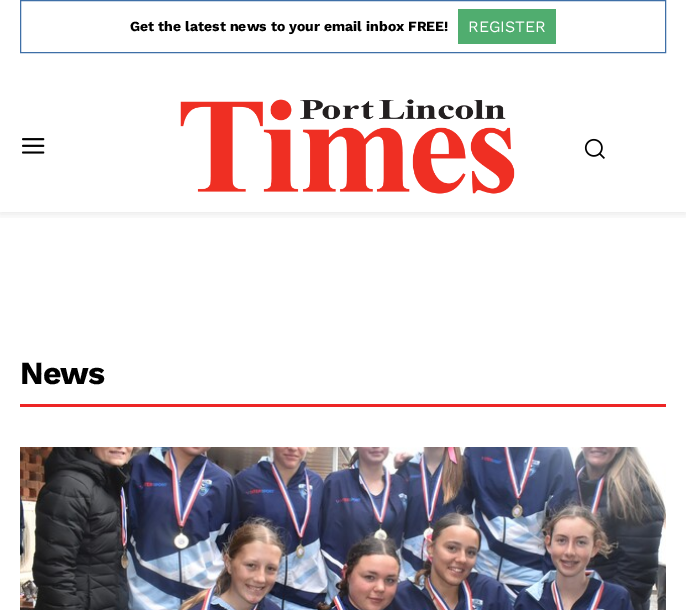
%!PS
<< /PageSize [686 610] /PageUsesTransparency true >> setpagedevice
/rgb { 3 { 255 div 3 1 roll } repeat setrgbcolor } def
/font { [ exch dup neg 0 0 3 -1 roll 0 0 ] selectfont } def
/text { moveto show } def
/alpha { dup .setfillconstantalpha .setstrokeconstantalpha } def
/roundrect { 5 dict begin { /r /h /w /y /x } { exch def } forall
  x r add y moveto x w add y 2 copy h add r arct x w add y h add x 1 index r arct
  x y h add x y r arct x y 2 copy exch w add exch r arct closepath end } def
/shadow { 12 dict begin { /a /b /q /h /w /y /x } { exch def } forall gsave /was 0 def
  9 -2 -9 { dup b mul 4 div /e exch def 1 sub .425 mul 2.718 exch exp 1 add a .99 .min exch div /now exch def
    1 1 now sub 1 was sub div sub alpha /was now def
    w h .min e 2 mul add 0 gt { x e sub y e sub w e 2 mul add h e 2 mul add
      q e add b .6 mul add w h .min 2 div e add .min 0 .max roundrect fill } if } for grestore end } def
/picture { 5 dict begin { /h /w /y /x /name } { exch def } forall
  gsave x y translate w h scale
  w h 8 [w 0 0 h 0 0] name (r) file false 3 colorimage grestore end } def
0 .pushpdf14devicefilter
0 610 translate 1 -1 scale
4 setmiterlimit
255 255 255 rgb
0 0 686 610 rectfill
62 111 167 rgb
20.5 0.5 645 52 rectstroke
80 173 111 rgb
458 9 98 35 rectfill
(img_01.rgb) 22 138 23 16 picture
(img_02.rgb) 180 99 335 95 picture
(img_03.rgb) 584 138 21 21 picture
gsave
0 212 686 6 rectclip
0 0 0 rgb
0 2 686 212 0 5 0.09 shadow
grestore
237 37 37 rgb
20 404 646 3 rectfill
(img_04.rgb) 20 447 646 163 picture
/WorkSans-Bold 14 font
0 0 0 rgb
(Get the latest news to your email inbox FREE!) 130 31 text
/WorkSans-Regular 16 font
255 255 255 rgb
(REGISTER) 468 32 text
/WorkSans-Bold 32 font
0 0 0 rgb
20 384 moveto -1 0 (News) ashow
.poppdf14devicefilter showpage
